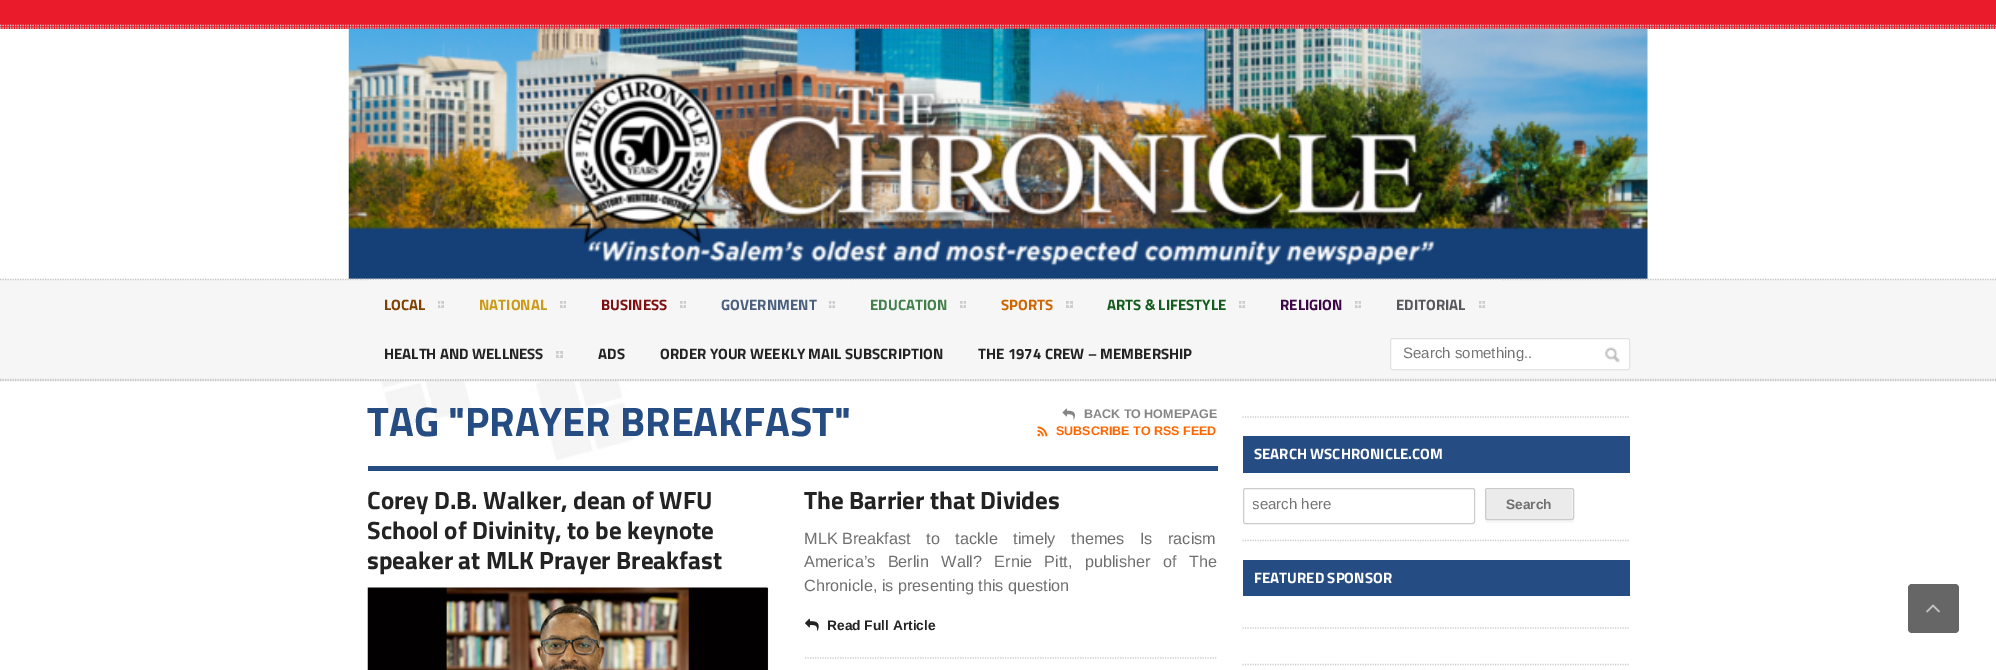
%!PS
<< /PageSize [1996 670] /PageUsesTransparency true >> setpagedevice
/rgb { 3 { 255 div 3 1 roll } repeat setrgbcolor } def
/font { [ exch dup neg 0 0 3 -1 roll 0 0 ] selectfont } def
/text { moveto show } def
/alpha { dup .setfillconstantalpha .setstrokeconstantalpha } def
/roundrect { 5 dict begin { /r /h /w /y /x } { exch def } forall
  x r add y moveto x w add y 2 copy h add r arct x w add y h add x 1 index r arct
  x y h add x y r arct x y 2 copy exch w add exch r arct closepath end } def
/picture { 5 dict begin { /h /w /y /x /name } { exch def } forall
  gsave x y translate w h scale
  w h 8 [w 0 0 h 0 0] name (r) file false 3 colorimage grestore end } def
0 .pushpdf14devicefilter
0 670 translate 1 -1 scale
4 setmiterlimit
255 255 255 rgb
0 0 1996 670 rectfill
(img_01.rgb) 239 381 1518 79 picture
234 28 44 rgb
0 0 1996 29 rectfill
204 204 204 rgb
1.2 setlinewidth
[1.25 1.25] 0 setdash
0 25.5 moveto 1996 0 rlineto stroke
0 28 moveto 1996 0 rlineto stroke
(img_02.rgb) 348 28 1300 251 picture
246 246 246 rgb
0 279 1996 101 rectfill
197 197 197 rgb
0 279.5 moveto 1996 0 rlineto stroke
0 379.5 moveto 1996 0 rlineto stroke
246 246 246 rgb
368 280 93 1 rectfill
204 204 204 rgb
438 301 6 7 rectfill
(img_03.rgb) 438 301 6 7 picture
246 246 246 rgb
463 280 121 1 rectfill
204 204 204 rgb
560 301 6 7 rectfill
(img_04.rgb) 560 301 6 7 picture
246 246 246 rgb
585 280 119 1 rectfill
204 204 204 rgb
680 301 6 7 rectfill
(img_04.rgb) 680 301 6 7 picture
246 246 246 rgb
705 280 146 1 rectfill
204 204 204 rgb
829 301 6 7 rectfill
(img_05.rgb) 829 301 6 7 picture
246 246 246 rgb
853 280 131 1 rectfill
204 204 204 rgb
960 301 6 7 rectfill
(img_04.rgb) 960 301 6 7 picture
246 246 246 rgb
985 280 104 1 rectfill
204 204 204 rgb
1066 301 7 7 rectfill
(img_06.rgb) 1066 301 7 7 picture
246 246 246 rgb
1090 280 171 1 rectfill
204 204 204 rgb
1239 301 6 7 rectfill
(img_07.rgb) 1239 301 6 7 picture
246 246 246 rgb
1263 280 116 1 rectfill
204 204 204 rgb
1355 301 6 7 rectfill
(img_08.rgb) 1355 301 6 7 picture
246 246 246 rgb
1380 280 121 1 rectfill
204 204 204 rgb
1479 301 6 7 rectfill
(img_07.rgb) 1479 301 6 7 picture
246 246 246 rgb
368 378 211 1 rectfill
204 204 204 rgb
556 351 7 7 rectfill
(img_06.rgb) 556 351 7 7 picture
246 246 246 rgb
580 378 61 1 rectfill
643 378 316 1 rectfill
960 378 249 1 rectfill
255 255 255 rgb
1390.5 338.5 239 31 2 roundrect gsave fill grestore
226 226 226 rgb
1 setlinewidth
[] 0 setdash
stroke
(img_09.rgb) 1605 347 15 16 picture
232 232 232 rgb
0 380 1996 1 rectfill
204 204 204 rgb
1.2 setlinewidth
[1.25 1.25] 0 setdash
0 380.5 moveto 1996 0 rlineto stroke
38 76 132 rgb
368 466 850 5 rectfill
(img_10.rgb) 1062 408 13 12 picture
(img_11.rgb) 1037 426 11 11 picture
35 35 35 rgb
767 588 1 82 rectfill
(img_12.rgb) 367 587 401 83 picture
0.15 alpha
0 0 0 rgb
1 setlinewidth
[] 0 setdash
368.5 588.5 399 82 rectstroke
1 alpha
204 204 204 rgb
1.2 setlinewidth
[1.25 1.25] 0 setdash
805 658 moveto 412.5 0 rlineto stroke
(img_13.rgb) 805 618 14 13 picture
1242.5 417 moveto 387.5 0 rlineto stroke
1242.5 540.5 moveto 387.5 0 rlineto stroke
38 76 132 rgb
1243 436 387 37 rectfill
204 204 204 rgb
1 setlinewidth
[] 0 setdash
1243.5 488.5 231 35 2 roundrect stroke
247 247 247 rgb
1485 518 moveto 0 1 0 5 3 5 rcurveto 84 0 rlineto 4 0 2 -10 2 -12 rcurveto 0 -20 rlineto 0 27 rlineto 0 1 -1 2 -3 2 rcurveto -83 0 rlineto -2 0 -3 -1 -3 -2 rcurveto closepath fill
235 235 235 rgb
1485 488 89 32 2.5 roundrect fill
245 245 245 rgb
1488 490 moveto 83 0 rlineto 1 0 1 1 1 1 rcurveto 0 28 rlineto 1 0 1 0 1 -1 rcurveto 0 -28 rlineto 0 -1 0 -1 -1 -1 rcurveto -85 0 rlineto -1 0 -1 0 -1 1 rcurveto 0 1 rlineto closepath fill
202 202 202 rgb
1485.5 488.5 88 31 2 roundrect stroke
204 204 204 rgb
1.2 setlinewidth
[1.25 1.25] 0 setdash
1242.5 628 moveto 387.5 0 rlineto stroke
38 76 132 rgb
1243 560 387 36 rectfill
204 204 204 rgb
1242.5 664.5 moveto 387.5 0 rlineto stroke
102 102 102 rgb
1908 584 51 49 4 roundrect fill
(img_14.rgb) 1926 604 14 9 picture
/TitilliumWeb-Bold 15 font
127 64 0 rgb
(LOCAL) 384 310 text
204 154 20 rgb
(NATIONAL) 479 310 text
126 15 16 rgb
(BUSINESS) 601 310 text
75 96 127 rgb
(GOVERNMENT) 721 310 text
66 127 74 rgb
(EDUCATION) 870 310 text
204 102 0 rgb
(SPORTS) 1001 310 text
20 92 29 rgb
(ARTS & LIFESTYLE) 1107 310 text
61 7 71 rgb
(RELIGION) 1280 310 text
88 87 92 rgb
(EDITORIAL) 1396 310 text
35 35 35 rgb
(HEALTH AND WELLNESS) 384 359 text
(ADS) 598 359 text
(ORDER YOUR WEEKLY MAIL SUBSCRIPTION) 660 359 text
(THE 1974 CREW – MEMBERSHIP) 978 359 text
/LiberationSans-Regular 15 font
117 117 117 rgb
(Search something..) 1403 358 text
/TitilliumWeb-Bold 41.25 font
38 76 132 rgb
(TAG "PRAYER BREAKFAST") 367 436 text
/LiberationSans-Bold 12.5 font
133 133 133 rgb
(BACK TO HOMEPAGE) 1084 418 text
255 102 0 rgb
(SUBSCRIBE TO RSS FEED) 1056 435 text
/TitilliumWeb-Bold 25 font
35 35 35 rgb
(Corey D.B. Walker, dean of WFU) 367 509 text
gsave
368 490 850 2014 rectclip
(School of Divinity, to be keynote) 367 539 text
grestore
(speaker at MLK Prayer Breakfast) 367 569 text
(The Barrier that Divides) 804 509 text
/LiberationSans-Regular 16.25 font
111 111 111 rgb
804 544 moveto 11 0 32 (MLK Breakfast to tackle timely themes Is racism) widthshow
804 567 moveto 7.75 0 32 (America’s Berlin Wall? Ernie Pitt, publisher of The) widthshow
(Chronicle, is presenting this question) 804 591 text
/LiberationSans-Bold 13.75 font
35 35 35 rgb
(Read Full Article) 827 630 text
/TitilliumWeb-Bold 15 font
255 255 255 rgb
(SEARCH WSCHRONICLE.COM) 1254 459 text
gsave
1253 495 212 18 rectclip
/LiberationSans-Regular 15 font
117 117 117 rgb
(search here) 1252 509 text
grestore
/LiberationSans-Bold 13.75 font
111 111 111 rgb
(Search) 1506 509 text
/TitilliumWeb-Bold 15 font
255 255 255 rgb
(FEATURED SPONSOR) 1254 583 text
.poppdf14devicefilter showpage
